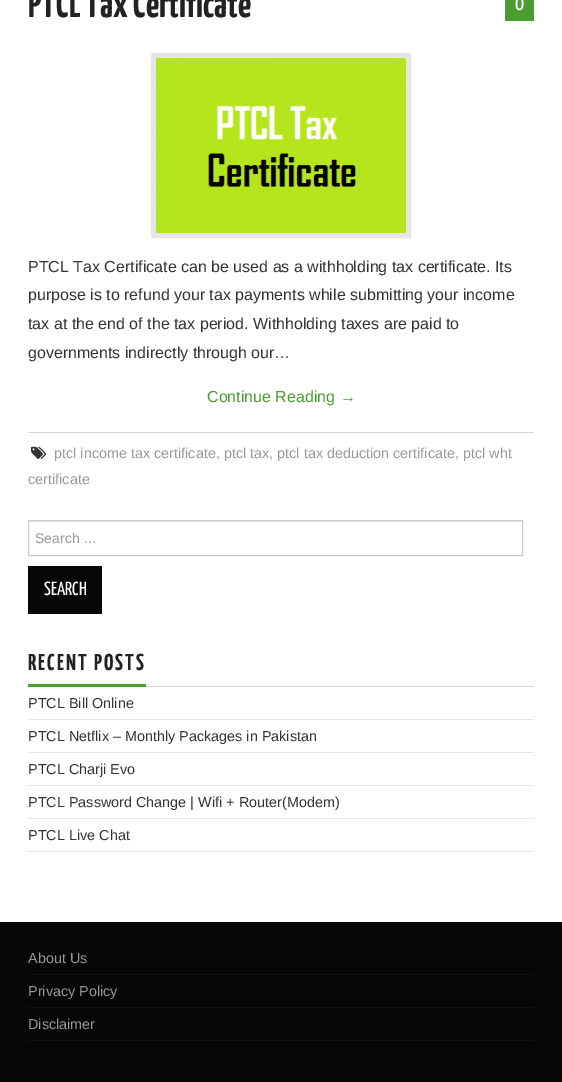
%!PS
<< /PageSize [562 1082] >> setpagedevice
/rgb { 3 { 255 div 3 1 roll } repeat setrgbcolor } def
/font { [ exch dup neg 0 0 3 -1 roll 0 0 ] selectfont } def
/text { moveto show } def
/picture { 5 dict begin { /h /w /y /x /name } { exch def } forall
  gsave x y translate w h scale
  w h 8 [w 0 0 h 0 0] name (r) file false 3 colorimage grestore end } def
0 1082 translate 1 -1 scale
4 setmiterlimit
255 255 255 rgb
0 0 562 1082 rectfill
75 157 51 rgb
505 0 29 21 rectfill
230 230 230 rgb
5 setlinewidth
153.5 55.5 255 180 rectstroke
(img_01.rgb) 156 58 250 175 picture
214 214 214 rgb
28 432 506 1 rectfill
(img_02.rgb) 31 446 16 13 picture
236 236 236 rgb
29 521 493 1 rectfill
204 204 204 rgb
1 setlinewidth
28.5 520.5 494 35 rectstroke
6 6 8 rgb
28 566 74 48 rectfill
214 214 214 rgb
146 686 388 1 rectfill
75 157 51 rgb
28 684 118 3 rectfill
230 230 230 rgb
28 719 506 1 rectfill
28 752 506 1 rectfill
28 785 506 1 rectfill
28 818 506 1 rectfill
28 851 506 1 rectfill
6 6 8 rgb
0 922 562 160 rectfill
17 17 17 rgb
28 974 506 1 rectfill
28 1007 506 1 rectfill
28 1040 506 1 rectfill
/YanoneKaffeesatz-Bold 38.5 font
34 34 34 rgb
(PTCL Tax Certificate) 28 17 text
/YanoneKaffeesatz-Regular 22 font
255 255 255 rgb
(0) 515 10 text
/LiberationSans-Regular 16 font
51 51 51 rgb
(PTCL Tax Certificate can be used as a withholding tax certificate. Its) 28 272 text
(purpose is to refund your tax payments while submitting your income) 28 300 text
(tax at the end of the tax period. Withholding taxes are paid to) 28 329 text
(governments indirectly through our…) 28 358 text
75 157 51 rgb
(Continue Reading →) 207 402 text
/LiberationSans-Regular 14.4 font
153 153 153 rgb
(ptcl income tax certificate, ptcl tax, ptcl tax deduction certificate, ptcl wht) 54 458 text
(certificate) 28 484 text
/LiberationSans-Regular 14 font
(Search …) 35 543 text
/YanoneKaffeesatz-Regular 19 font
255 255 255 rgb
(SEARCH) 44 595 text
/YanoneKaffeesatz-Bold 23 font
34 34 34 rgb
28 670 moveto 2 0 (RECENT POSTS) ashow
/LiberationSans-Regular 14.4 font
51 51 51 rgb
(PTCL Bill Online) 28 708 text
(PTCL Netflix – Monthly Packages in Pakistan) 28 741 text
(PTCL Charji Evo) 28 774 text
(PTCL Password Change | Wifi + Router\(Modem\)) 28 807 text
(PTCL Live Chat) 28 840 text
153 153 153 rgb
(About Us) 28 963 text
(Privacy Policy) 28 996 text
(Disclaimer) 28 1029 text
showpage
